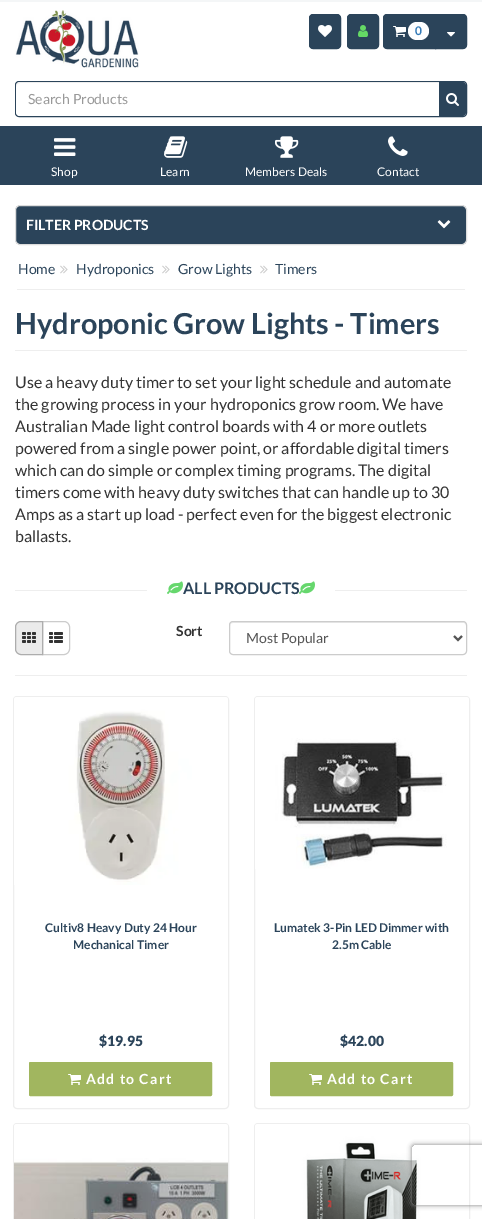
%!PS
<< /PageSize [482 1219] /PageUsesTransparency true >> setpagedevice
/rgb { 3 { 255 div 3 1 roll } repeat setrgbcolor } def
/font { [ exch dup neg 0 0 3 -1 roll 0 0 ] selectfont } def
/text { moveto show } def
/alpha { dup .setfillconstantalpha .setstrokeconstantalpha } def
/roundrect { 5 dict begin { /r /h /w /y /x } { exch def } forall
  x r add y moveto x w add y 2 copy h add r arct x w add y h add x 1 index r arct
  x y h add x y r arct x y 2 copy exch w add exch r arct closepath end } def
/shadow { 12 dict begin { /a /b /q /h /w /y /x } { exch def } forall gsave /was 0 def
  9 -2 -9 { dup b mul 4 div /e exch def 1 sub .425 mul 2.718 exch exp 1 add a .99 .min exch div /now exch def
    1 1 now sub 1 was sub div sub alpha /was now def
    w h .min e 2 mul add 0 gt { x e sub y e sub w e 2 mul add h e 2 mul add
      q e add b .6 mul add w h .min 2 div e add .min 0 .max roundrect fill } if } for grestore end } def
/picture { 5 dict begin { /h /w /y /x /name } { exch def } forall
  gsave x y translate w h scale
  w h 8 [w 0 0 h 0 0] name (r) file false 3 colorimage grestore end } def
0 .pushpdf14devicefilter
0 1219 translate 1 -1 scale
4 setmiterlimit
255 255 255 rgb
0 0 482 1219 rectfill
244 246 247 rgb
0 0 482 2 rectfill
(img_01.rgb) 15 10 124 58 picture
43 68 90 rgb
309.5 14.5 31 34 3.5 roundrect gsave fill grestore
stroke
(img_02.rgb) 318 25 14 12 picture
347.5 14.5 31 34 3.5 roundrect gsave fill grestore
stroke
(img_03.rgb) 358 25 10 12 picture
387 14.5 moveto 48.5 0 rlineto 0 34 rlineto -48.5 0 rlineto -2 0 -3.5 -1.5 -3.5 -3.5 rcurveto 0 -27 rlineto 0 -2 1.5 -3.5 3.5 -3.5 rcurveto closepath gsave fill grestore
stroke
(img_04.rgb) 393 26 13 11 picture
255 255 255 rgb
408 22 21 18 9 roundrect fill
43 68 90 rgb
435.5 14.5 moveto 27.5 0 rlineto 2 0 3.5 1.5 3.5 3.5 rcurveto 0 27 rlineto 0 2 -1.5 3.5 -3.5 3.5 rcurveto -27.5 0 rlineto closepath gsave fill grestore
stroke
(img_05.rgb) 447 32 8 5 picture
15.5 81.5 451 35 3.5 roundrect stroke
255 255 255 rgb
20 82 moveto 420 0 rlineto 0 34 rlineto -420 0 rlineto -2 0 -4 -2 -4 -4 rcurveto 0 -26 rlineto 0 -2 2 -4 4 -4 rcurveto closepath fill
0.07 alpha
0 0 0 rgb
20 83 moveto 420 0 rlineto 0 -1 rlineto -420 0 rlineto -2 0 -4 2 -4 4 rcurveto 0 1 rlineto 0 -2 2 -4 4 -4 rcurveto closepath fill
1 alpha
43 68 90 rgb
439.5 82.5 moveto 22.5 0 rlineto 2 0 3.5 1.5 3.5 3.5 rcurveto 0 26 rlineto 0 2 -1.5 3.5 -3.5 3.5 rcurveto -22.5 0 rlineto closepath gsave fill grestore
stroke
(img_06.rgb) 446 93 13 13 picture
0 126 482 59 rectfill
(img_07.rgb) 54 138 22 18 picture
(img_08.rgb) 164 136 24 22 picture
(img_09.rgb) 275 136 24 22 picture
(img_10.rgb) 388 136 20 20 picture
15.5 205.5 451 39 4.5 roundrect gsave fill grestore
221 221 221 rgb
stroke
(img_11.rgb) 437 220 14 9 picture
238 238 238 rgb
17 289 448 1 rectfill
(img_12.rgb) 60 265 8 9 picture
(img_12.rgb) 162 265 8 9 picture
(img_12.rgb) 260 265 8 9 picture
15 350 452 1 rectfill
15 590 452 1 rectfill
255 255 255 rgb
147 590 188 1 rectfill
(img_13.rgb) 167 581 16 13 picture
(img_13.rgb) 299 581 16 13 picture
204 204 204 rgb
42.5 621.5 moveto 21.5 0 rlineto 3 0 5.5 2.5 5.5 5.5 rcurveto 0 22 rlineto 0 3 -2.5 5.5 -5.5 5.5 rcurveto -21.5 0 rlineto closepath stroke
235 235 235 rgb
21 621.5 moveto 21.5 0 rlineto 0 33 rlineto -21.5 0 rlineto -3 0 -5.5 -2.5 -5.5 -5.5 rcurveto 0 -22 rlineto 0 -3 2.5 -5.5 5.5 -5.5 rcurveto closepath gsave fill grestore
173 173 173 rgb
stroke
(img_14.rgb) 22 632 14 11 picture
(img_15.rgb) 49 632 14 11 picture
236 236 236 rgb
233 623 moveto 231 0 rlineto 2 1 rlineto 0 2 rlineto 0 -2 -1 -4 -3 -4 rcurveto -230 0 rlineto -2 0 -3 2 -3 4 rcurveto 0 -2 1 -3 3 -3 rcurveto closepath fill
204 204 204 rgb
229.5 621.5 237 33 3.5 roundrect stroke
85 85 85 rgb
2 setlinewidth
454 636 moveto 4 4 rlineto 4 -4 rlineto stroke
238 238 238 rgb
15 675 452 1 rectfill
1 setlinewidth
13.5 696.5 215 412 3.5 roundrect stroke
(img_16.rgb) 14 697 214 188 picture
161 182 95 rgb
29.5 1062.5 182 33 1 roundrect gsave fill grestore
stroke
(img_17.rgb) 68 1074 13 11 picture
238 238 238 rgb
254.5 696.5 215 412 3.5 roundrect stroke
(img_18.rgb) 255 697 214 172 picture
161 182 95 rgb
270.5 1062.5 182 33 1 roundrect gsave fill grestore
stroke
(img_17.rgb) 309 1074 13 11 picture
238 238 238 rgb
13.5 1123.5 215 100 3.5 roundrect stroke
(img_19.rgb) 14 1124 214 95 picture
254.5 1123.5 215 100 3.5 roundrect stroke
(img_20.rgb) 255 1124 214 95 picture
gsave
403 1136 moveto 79 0 rlineto 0 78 rlineto -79 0 rlineto closepath 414 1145 moveto 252 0 rlineto 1 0 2 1 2 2 rcurveto 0 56 rlineto 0 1 -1 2 -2 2 rcurveto -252 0 rlineto -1 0 -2 -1 -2 -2 rcurveto 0 -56 rlineto 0 -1 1 -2 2 -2 rcurveto closepath eoclip newpath
128 128 128 rgb
412 1145 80 60 2 2.5 1 shadow
grestore
/Lato-Bold 12 font
51 122 183 rgb
(0) 415 35 text
/Lato-Regular 14 font
153 153 153 rgb
(Search Products) 28 104 text
/Lato-Regular 12 font
255 255 255 rgb
(Shop) 51 176 text
(Learn) 160 176 text
(Members Deals) 245 176 text
(Contact) 377 176 text
/Lato-Bold 14 font
(FILTER PRODUCTS) 26 230 text
/Lato-Regular 14 font
43 68 90 rgb
(Home) 18 274 text
(Hydroponics) 76 274 text
(Grow Lights) 178 274 text
(Timers) 275 274 text
/Lato-Bold 28.9 font
(Hydroponic Grow Lights - Timers) 15 334 text
/Lato-Regular 16 font
51 51 51 rgb
(Use a heavy duty timer to set your light schedule and automate) 15 388 text
(the growing process in your hydroponics grow room. We have) 15 410 text
(Australian Made light control boards with 4 or more outlets) 15 432 text
(powered from a single power point, or affordable digital timers) 15 454 text
(which can do simple or complex timing programs. The digital) 15 476 text
(timers come with heavy duty switches that can handle up to 30) 15 498 text
(Amps as a start up load - perfect even for the biggest electronic) 15 520 text
(ballasts.) 15 542 text
/Lato-Bold 16 font
43 68 90 rgb
(ALL PRODUCTS) 183 594 text
/Lato-Bold 14 font
51 51 51 rgb
(Sort) 176 636 text
/Lato-Regular 14 font
85 85 85 rgb
(Most Popular) 246 643 text
/Lato-Bold 12 font
43 68 90 rgb
(Cultiv8 Heavy Duty 24 Hour) 45 932 text
(Mechanical Timer) 73 949 text
/Lato-Black 14 font
($19.95) 99 1046 text
/Lato-Bold 14 font
255 255 255 rgb
86 1084 moveto 1.25 0 (Add to Cart) ashow
/Lato-Bold 12 font
43 68 90 rgb
(Lumatek 3-Pin LED Dimmer with) 274 932 text
(2.5m Cable) 332 949 text
/Lato-Black 14 font
($42.00) 340 1046 text
/Lato-Bold 14 font
255 255 255 rgb
327 1084 moveto 1.25 0 (Add to Cart) ashow
.poppdf14devicefilter showpage
